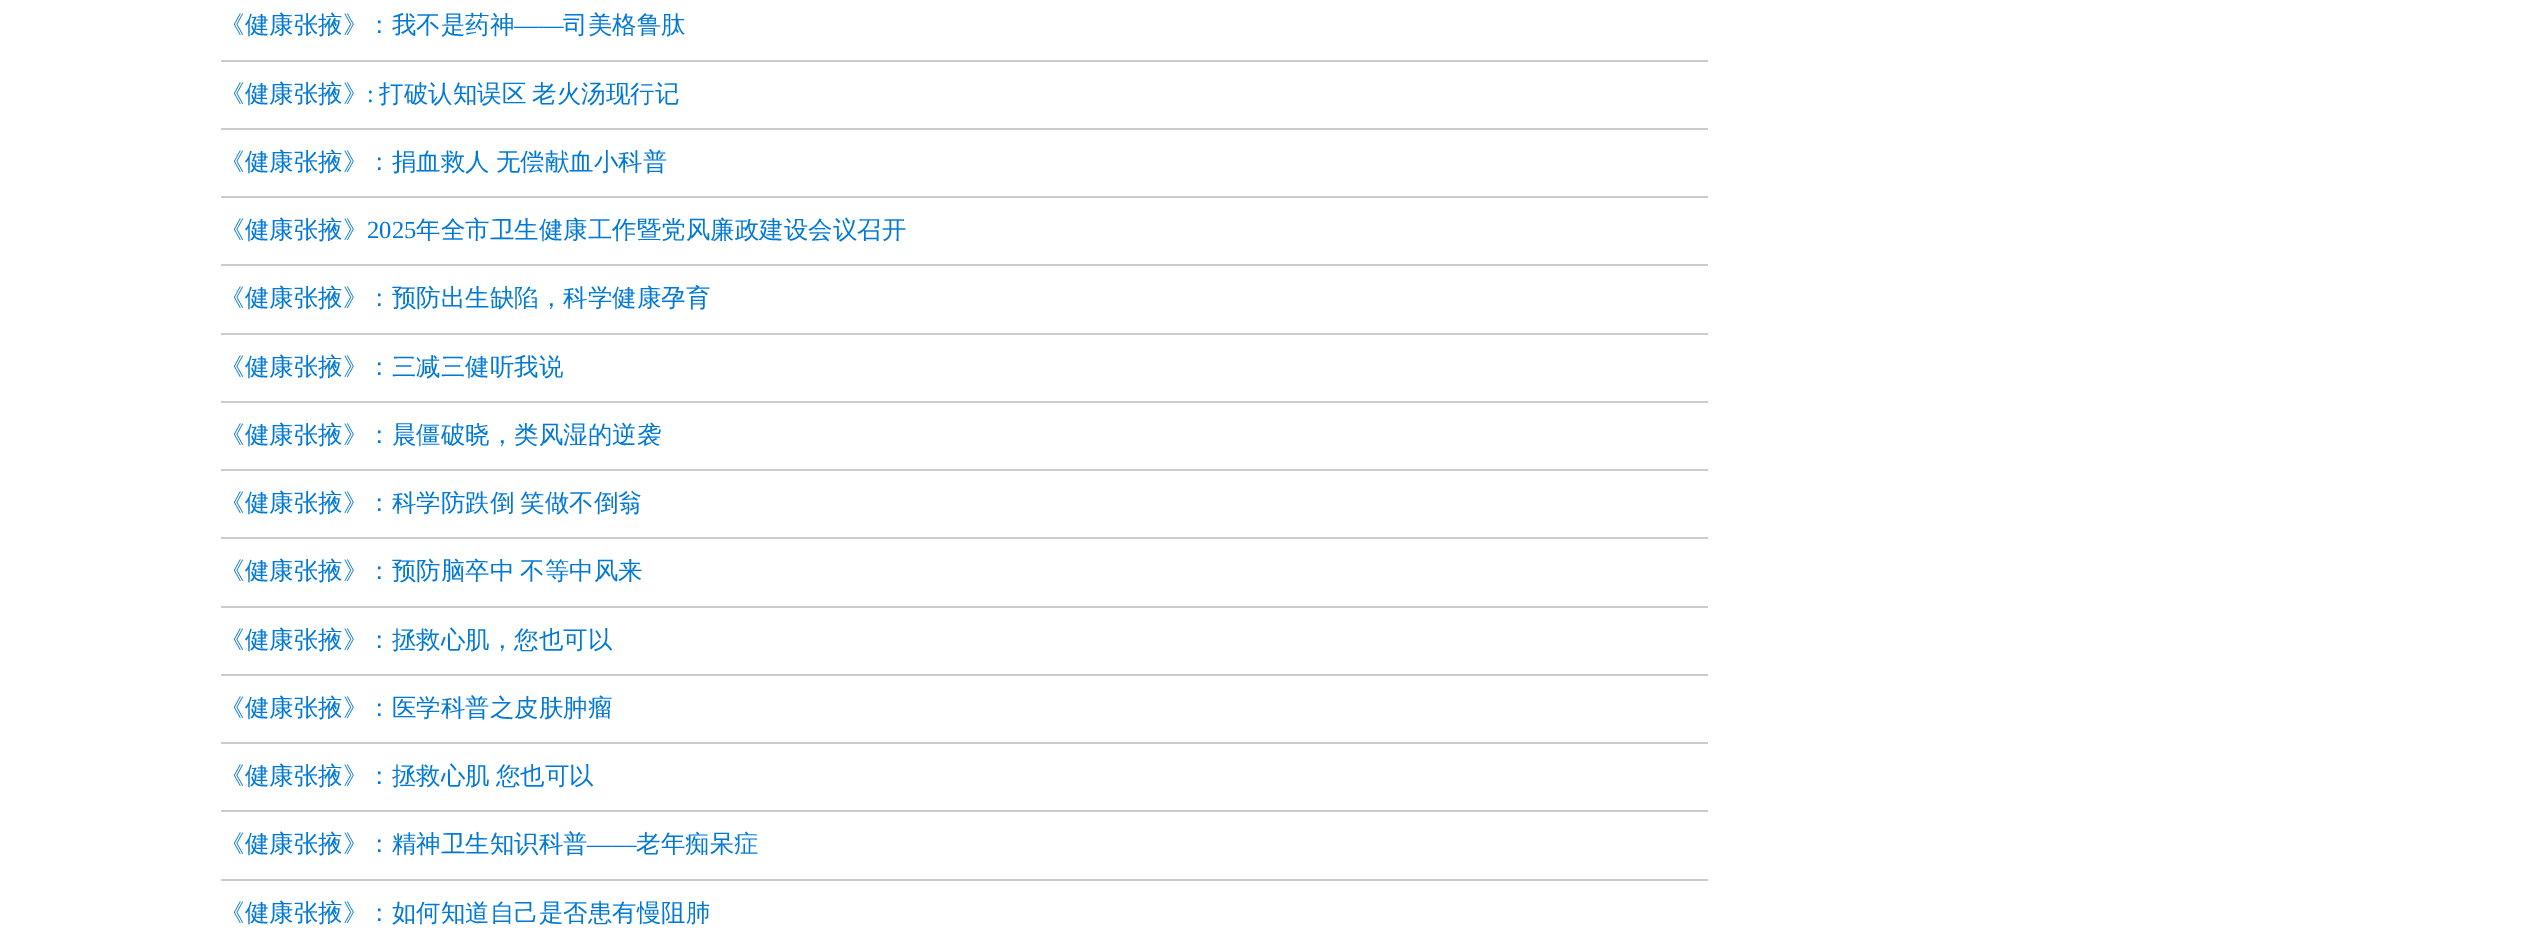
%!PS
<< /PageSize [2539 939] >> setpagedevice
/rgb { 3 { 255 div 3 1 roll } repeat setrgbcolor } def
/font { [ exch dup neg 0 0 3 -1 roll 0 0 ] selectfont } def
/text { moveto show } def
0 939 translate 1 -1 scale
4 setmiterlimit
255 255 255 rgb
0 0 2539 939 rectfill
204 204 204 rgb
221 60 1487 2 rectfill
221 128 1487 2 rectfill
221 196 1487 2 rectfill
221 264 1487 2 rectfill
221 333 1487 2 rectfill
221 401 1487 2 rectfill
221 469 1487 2 rectfill
221 537 1487 2 rectfill
221 606 1487 2 rectfill
221 674 1487 2 rectfill
221 742 1487 2 rectfill
221 810 1487 2 rectfill
221 879 1487 2 rectfill
/WenQuanYiZenHei-Medium 24.5 font
0 120 213 rgb
(《健康张掖》：我不是药神) 220 33 text
/LiberationSerif-Regular 24.5 font
(——) 514 33 text
/WenQuanYiZenHei-Medium 24.5 font
(司美格鲁肽) 563 33 text
(《健康张掖》) 220 102 text
/LiberationSerif-Regular 24.5 font
(:) 367 102 text
/WenQuanYiZenHei-Medium 24.5 font
379 102 moveto -1 0 32 (打破认知误区 老火汤现行记) widthshow
220 170 moveto -1 0 32 (《健康张掖》：捐血救人 无偿献血小科普) widthshow
(《健康张掖》) 220 238 text
/LiberationSerif-Regular 24.5 font
(2025) 367 238 text
/WenQuanYiZenHei-Medium 24.5 font
(年全市卫生健康工作暨党风廉政建设会议召开) 416 238 text
(《健康张掖》：预防出生缺陷，科学健康孕育) 220 306 text
(《健康张掖》：三减三健听我说) 220 375 text
(《健康张掖》：晨僵破晓，类风湿的逆袭) 220 443 text
220 511 moveto -1 0 32 (《健康张掖》：科学防跌倒 笑做不倒翁) widthshow
220 579 moveto -1 0 32 (《健康张掖》：预防脑卒中 不等中风来) widthshow
(《健康张掖》：拯救心肌，您也可以) 220 648 text
(《健康张掖》：医学科普之皮肤肿瘤) 220 716 text
220 784 moveto -1 0 32 (《健康张掖》：拯救心肌 您也可以) widthshow
(《健康张掖》：精神卫生知识科普) 220 852 text
/LiberationSerif-Regular 24.5 font
(——) 587 852 text
/WenQuanYiZenHei-Medium 24.5 font
(老年痴呆症) 636 852 text
(《健康张掖》：如何知道自己是否患有慢阻肺) 220 921 text
showpage
